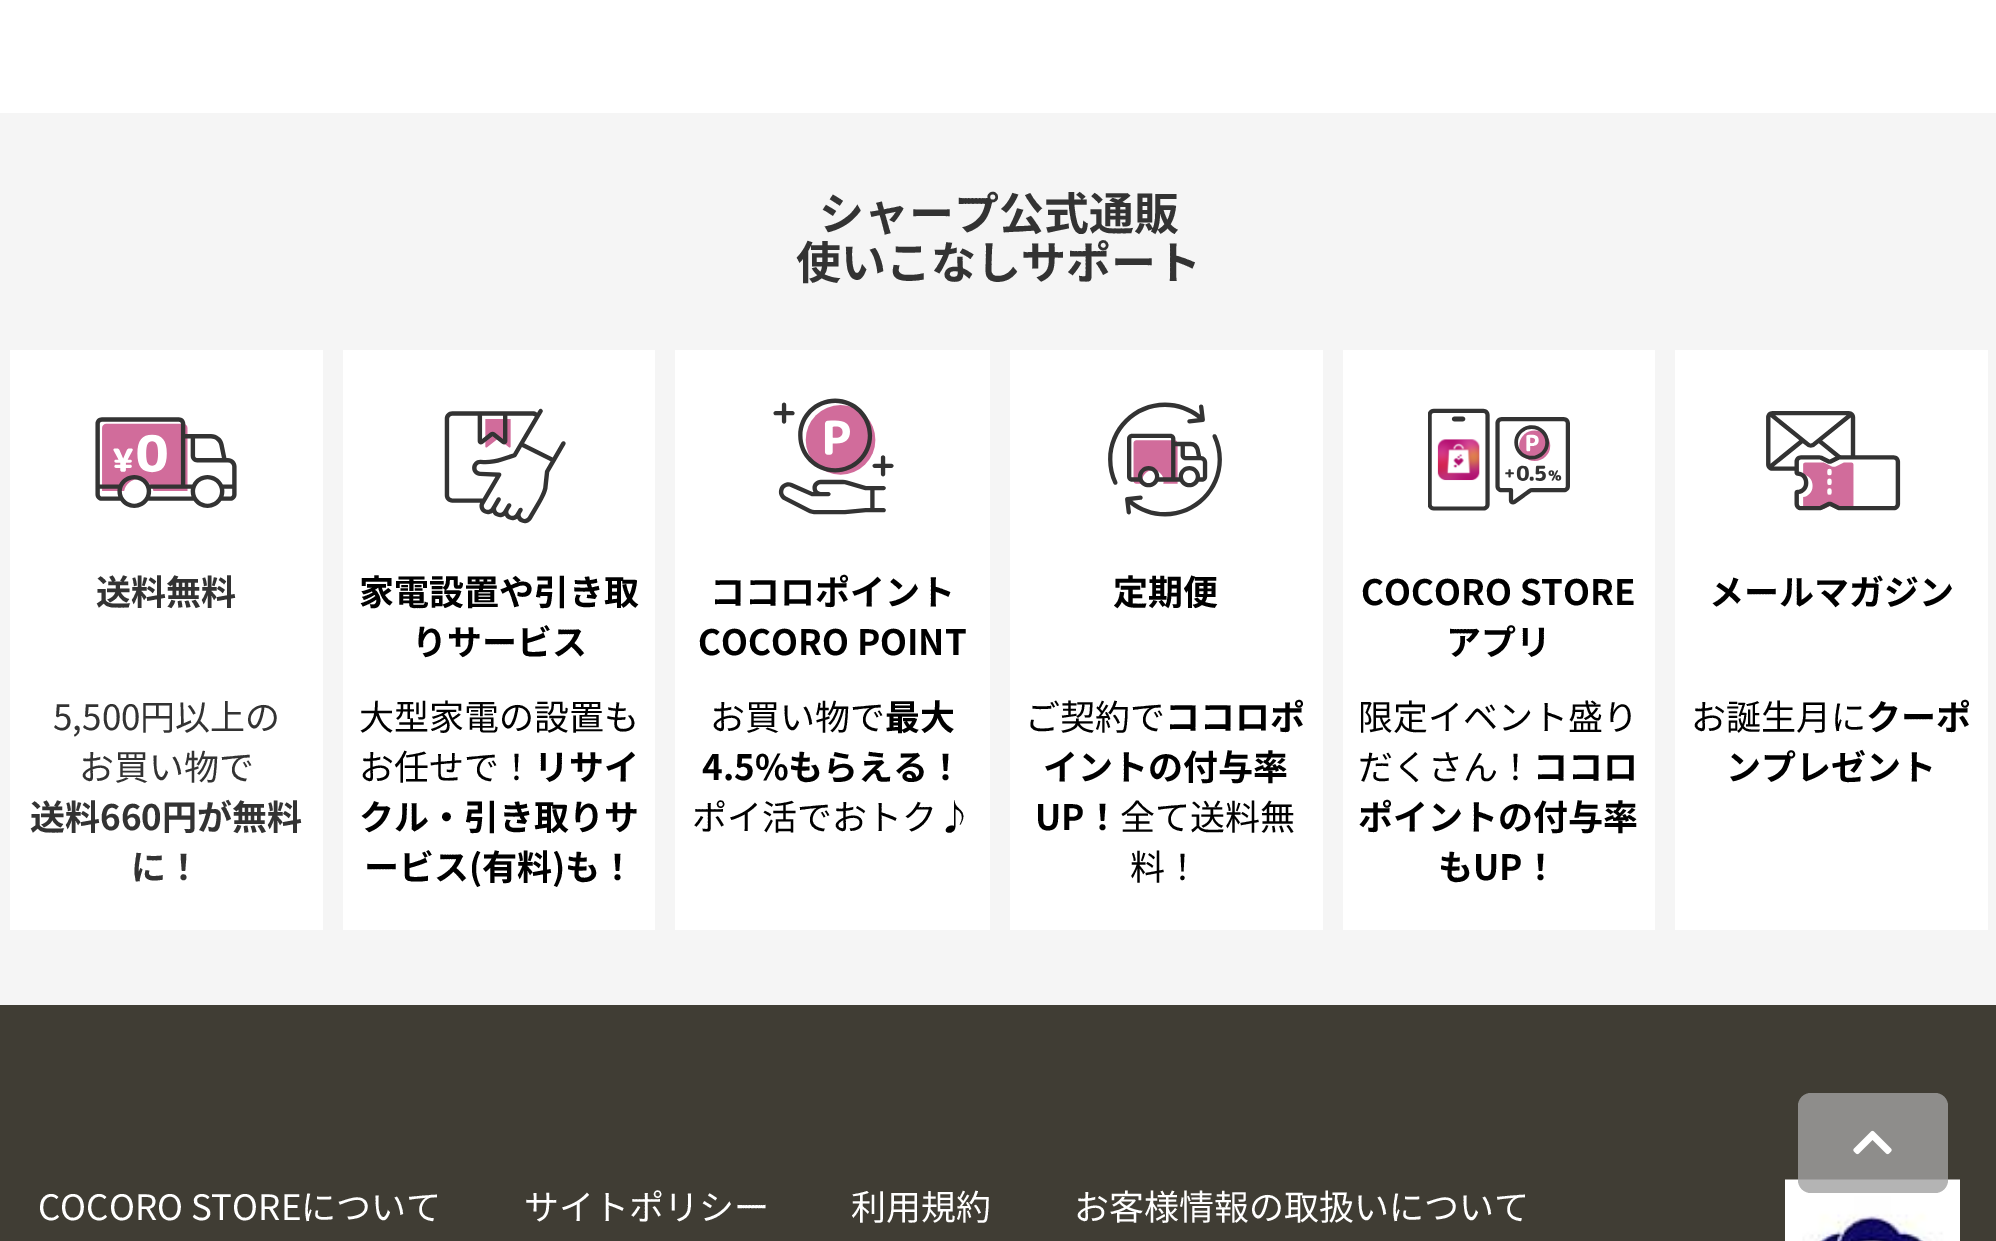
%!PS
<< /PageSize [1996 1241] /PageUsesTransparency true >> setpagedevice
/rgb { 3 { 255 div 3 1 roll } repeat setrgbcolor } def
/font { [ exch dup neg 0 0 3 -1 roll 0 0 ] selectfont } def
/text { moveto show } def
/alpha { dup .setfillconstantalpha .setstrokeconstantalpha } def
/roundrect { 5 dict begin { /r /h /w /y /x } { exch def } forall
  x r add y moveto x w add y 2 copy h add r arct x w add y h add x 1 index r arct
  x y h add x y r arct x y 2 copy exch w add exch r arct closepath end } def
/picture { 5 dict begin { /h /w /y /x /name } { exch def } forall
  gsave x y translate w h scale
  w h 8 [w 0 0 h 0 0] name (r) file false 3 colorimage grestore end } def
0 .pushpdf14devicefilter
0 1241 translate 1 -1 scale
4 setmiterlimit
255 255 255 rgb
0 0 1996 1241 rectfill
64 61 52 rgb
0 1005 1996 236 rectfill
245 245 245 rgb
0 113 1996 892 rectfill
255 255 255 rgb
10 350 313 580 rectfill
(img_01.rgb) 95 417 142 91 picture
343 350 312 580 rectfill
(img_02.rgb) 444 408 122 116 picture
675 350 315 580 rectfill
(img_03.rgb) 773 398 121 117 picture
1010 350 313 580 rectfill
(img_04.rgb) 1108 402 114 115 picture
1343 350 312 580 rectfill
(img_05.rgb) 1428 408 142 103 picture
1675 350 313 580 rectfill
(img_06.rgb) 1766 411 135 100 picture
(img_07.rgb) 1785 1179 175 62 picture
0.8 alpha
161 161 161 rgb
1798 1093 150 100 13 roundrect fill
1 alpha
(img_08.rgb) 1853 1130 39 25 picture
/NotoSansJP-Bold 45 font
51 51 51 rgb
(シャープ公式通販) 819 230 text
(使いこなしサポート) 796 279 text
/NotoSansJP-Bold 35 font
(送料無料) 96 605 text
/NotoSansJP-Regular 35 font
(5,500円以上の) 53 730 text
(お買い物で) 79 780 text
/NotoSansJP-Bold 35 font
(送料660円が無料) 30 830 text
(に！) 131 880 text
0 0 0 rgb
(家電設置や引き取) 359 605 text
(りサービス) 412 655 text
/NotoSansJP-Regular 35 font
(大型家電の設置も) 359 730 text
(お任せで！) 359 780 text
/NotoSansJP-Bold 35 font
(リサイ) 534 780 text
(クル・引き取りサ) 359 830 text
(ービス\(有料\)も！) 364 880 text
(ココロポイント) 710 605 text
(COCORO POINT) 698 655 text
/NotoSansJP-Regular 35 font
(お買い物で) 710 730 text
/NotoSansJP-Bold 35 font
(最大) 885 730 text
(4.5%もらえる！) 702 780 text
/NotoSansJP-Regular 35 font
(ポイ活でおトク♪) 692 830 text
/NotoSansJP-Bold 35 font
(定期便) 1113 605 text
/NotoSansJP-Regular 35 font
(ご契約で) 1025 730 text
/NotoSansJP-Bold 35 font
(ココロポ) 1165 730 text
(イントの付与率) 1043 780 text
(UP！) 1035 830 text
/NotoSansJP-Regular 35 font
(全て送料無) 1120 830 text
(料！) 1130 880 text
/NotoSansJP-Bold 35 font
(COCORO STORE) 1361 605 text
(アプリ) 1446 655 text
/NotoSansJP-Regular 35 font
(限定イベント盛り) 1358 730 text
(だくさん！) 1358 780 text
/NotoSansJP-Bold 35 font
(ココロ) 1533 780 text
(ポイントの付与率) 1358 830 text
(もUP！) 1438 880 text
(メールマガジン) 1709 605 text
/NotoSansJP-Regular 35 font
(お誕生月に) 1691 730 text
/NotoSansJP-Bold 35 font
(クーポ) 1866 730 text
(ンプレゼント) 1726 780 text
/NotoSansJP-Regular 35 font
255 255 255 rgb
(COCORO STOREについて) 38 1220 text
(サイトポリシー) 524 1220 text
(利用規約) 851 1220 text
(お客様情報の取扱いについて) 1074 1220 text
.poppdf14devicefilter showpage
